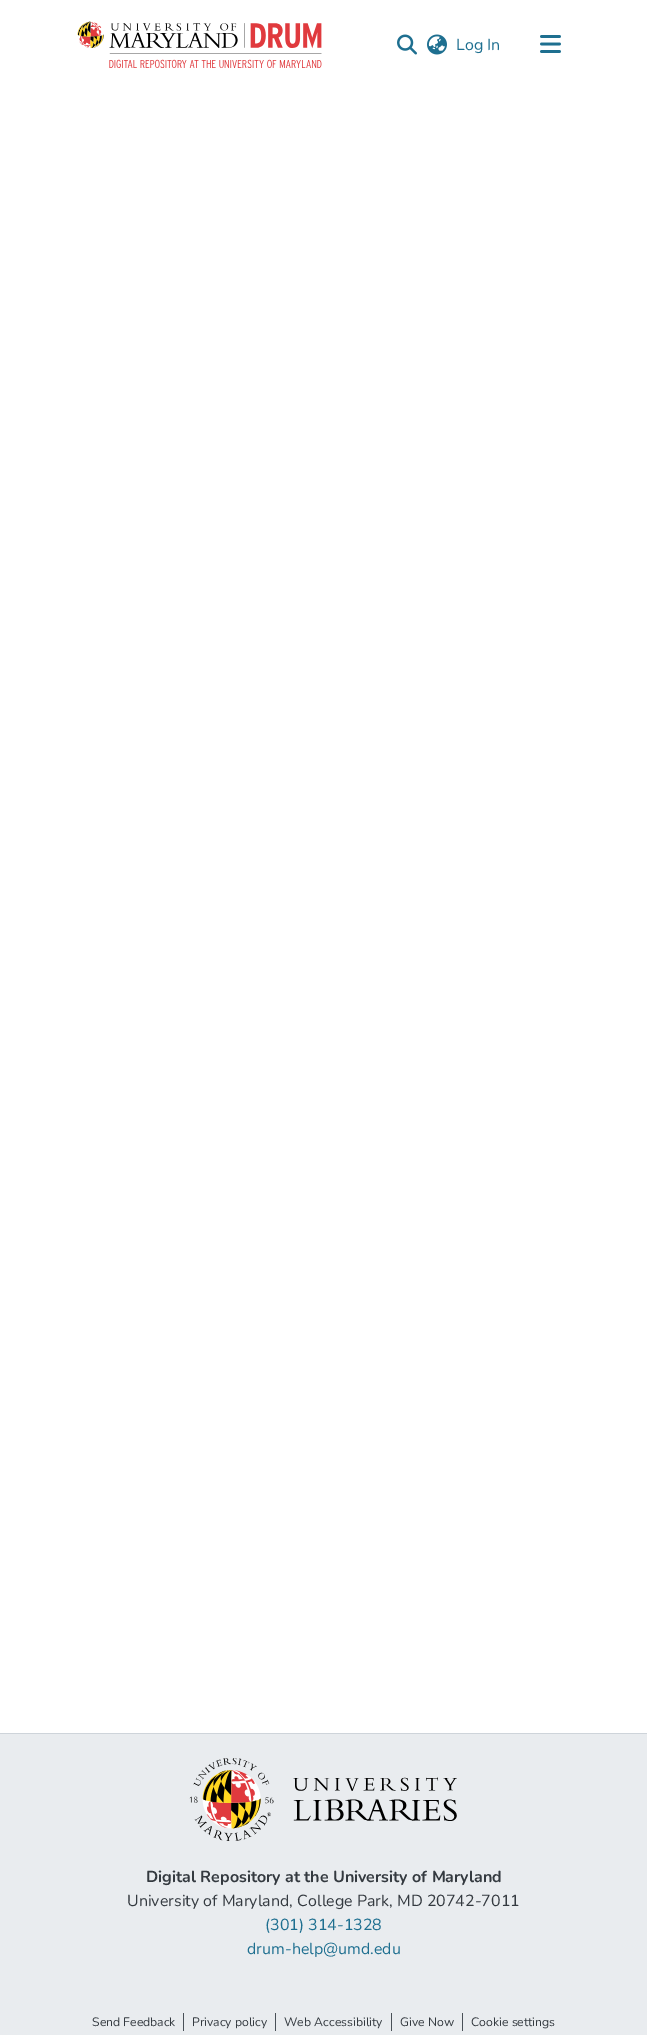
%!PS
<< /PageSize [647 2035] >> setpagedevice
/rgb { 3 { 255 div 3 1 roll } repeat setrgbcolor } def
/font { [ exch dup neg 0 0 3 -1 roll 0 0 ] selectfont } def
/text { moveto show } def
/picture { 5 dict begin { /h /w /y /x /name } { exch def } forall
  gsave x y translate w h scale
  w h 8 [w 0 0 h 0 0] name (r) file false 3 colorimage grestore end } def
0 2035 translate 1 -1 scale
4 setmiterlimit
255 255 255 rgb
0 0 647 2035 rectfill
(img_01.rgb) 77 21 245 47 picture
(img_02.rgb) 397 34 20 21 picture
(img_03.rgb) 427 34 20 21 picture
(img_04.rgb) 540 35 21 18 picture
233 236 239 rgb
0 1734 647 301 rectfill
206 212 218 rgb
0 1733 647 1 rectfill
(img_05.rgb) 189 1758 268 83 picture
73 80 87 rgb
183 2013 1 18 rectfill
275 2013 1 18 rectfill
391 2013 1 18 rectfill
462 2013 1 18 rectfill
/Nunito-Regular 16 font
30 111 144 rgb
(Log In) 456 50 text
/Nunito-Bold 16 font
52 58 64 rgb
(Digital Repository at the University of Maryland) 146 1882 text
/Nunito-Regular 16 font
(University of Maryland, College Park, MD 20742-7011) 127 1906 text
30 111 144 rgb
(\(301\) 314-1328) 265 1930 text
(drum-help@umd.edu) 247 1954 text
/Nunito-Regular 12.25 font
52 58 64 rgb
(Send Feedback) 92 2026 text
(Privacy policy) 192 2026 text
(Web Accessibility) 284 2026 text
(Give Now) 400 2026 text
(Cookie settings) 471 2026 text
showpage
